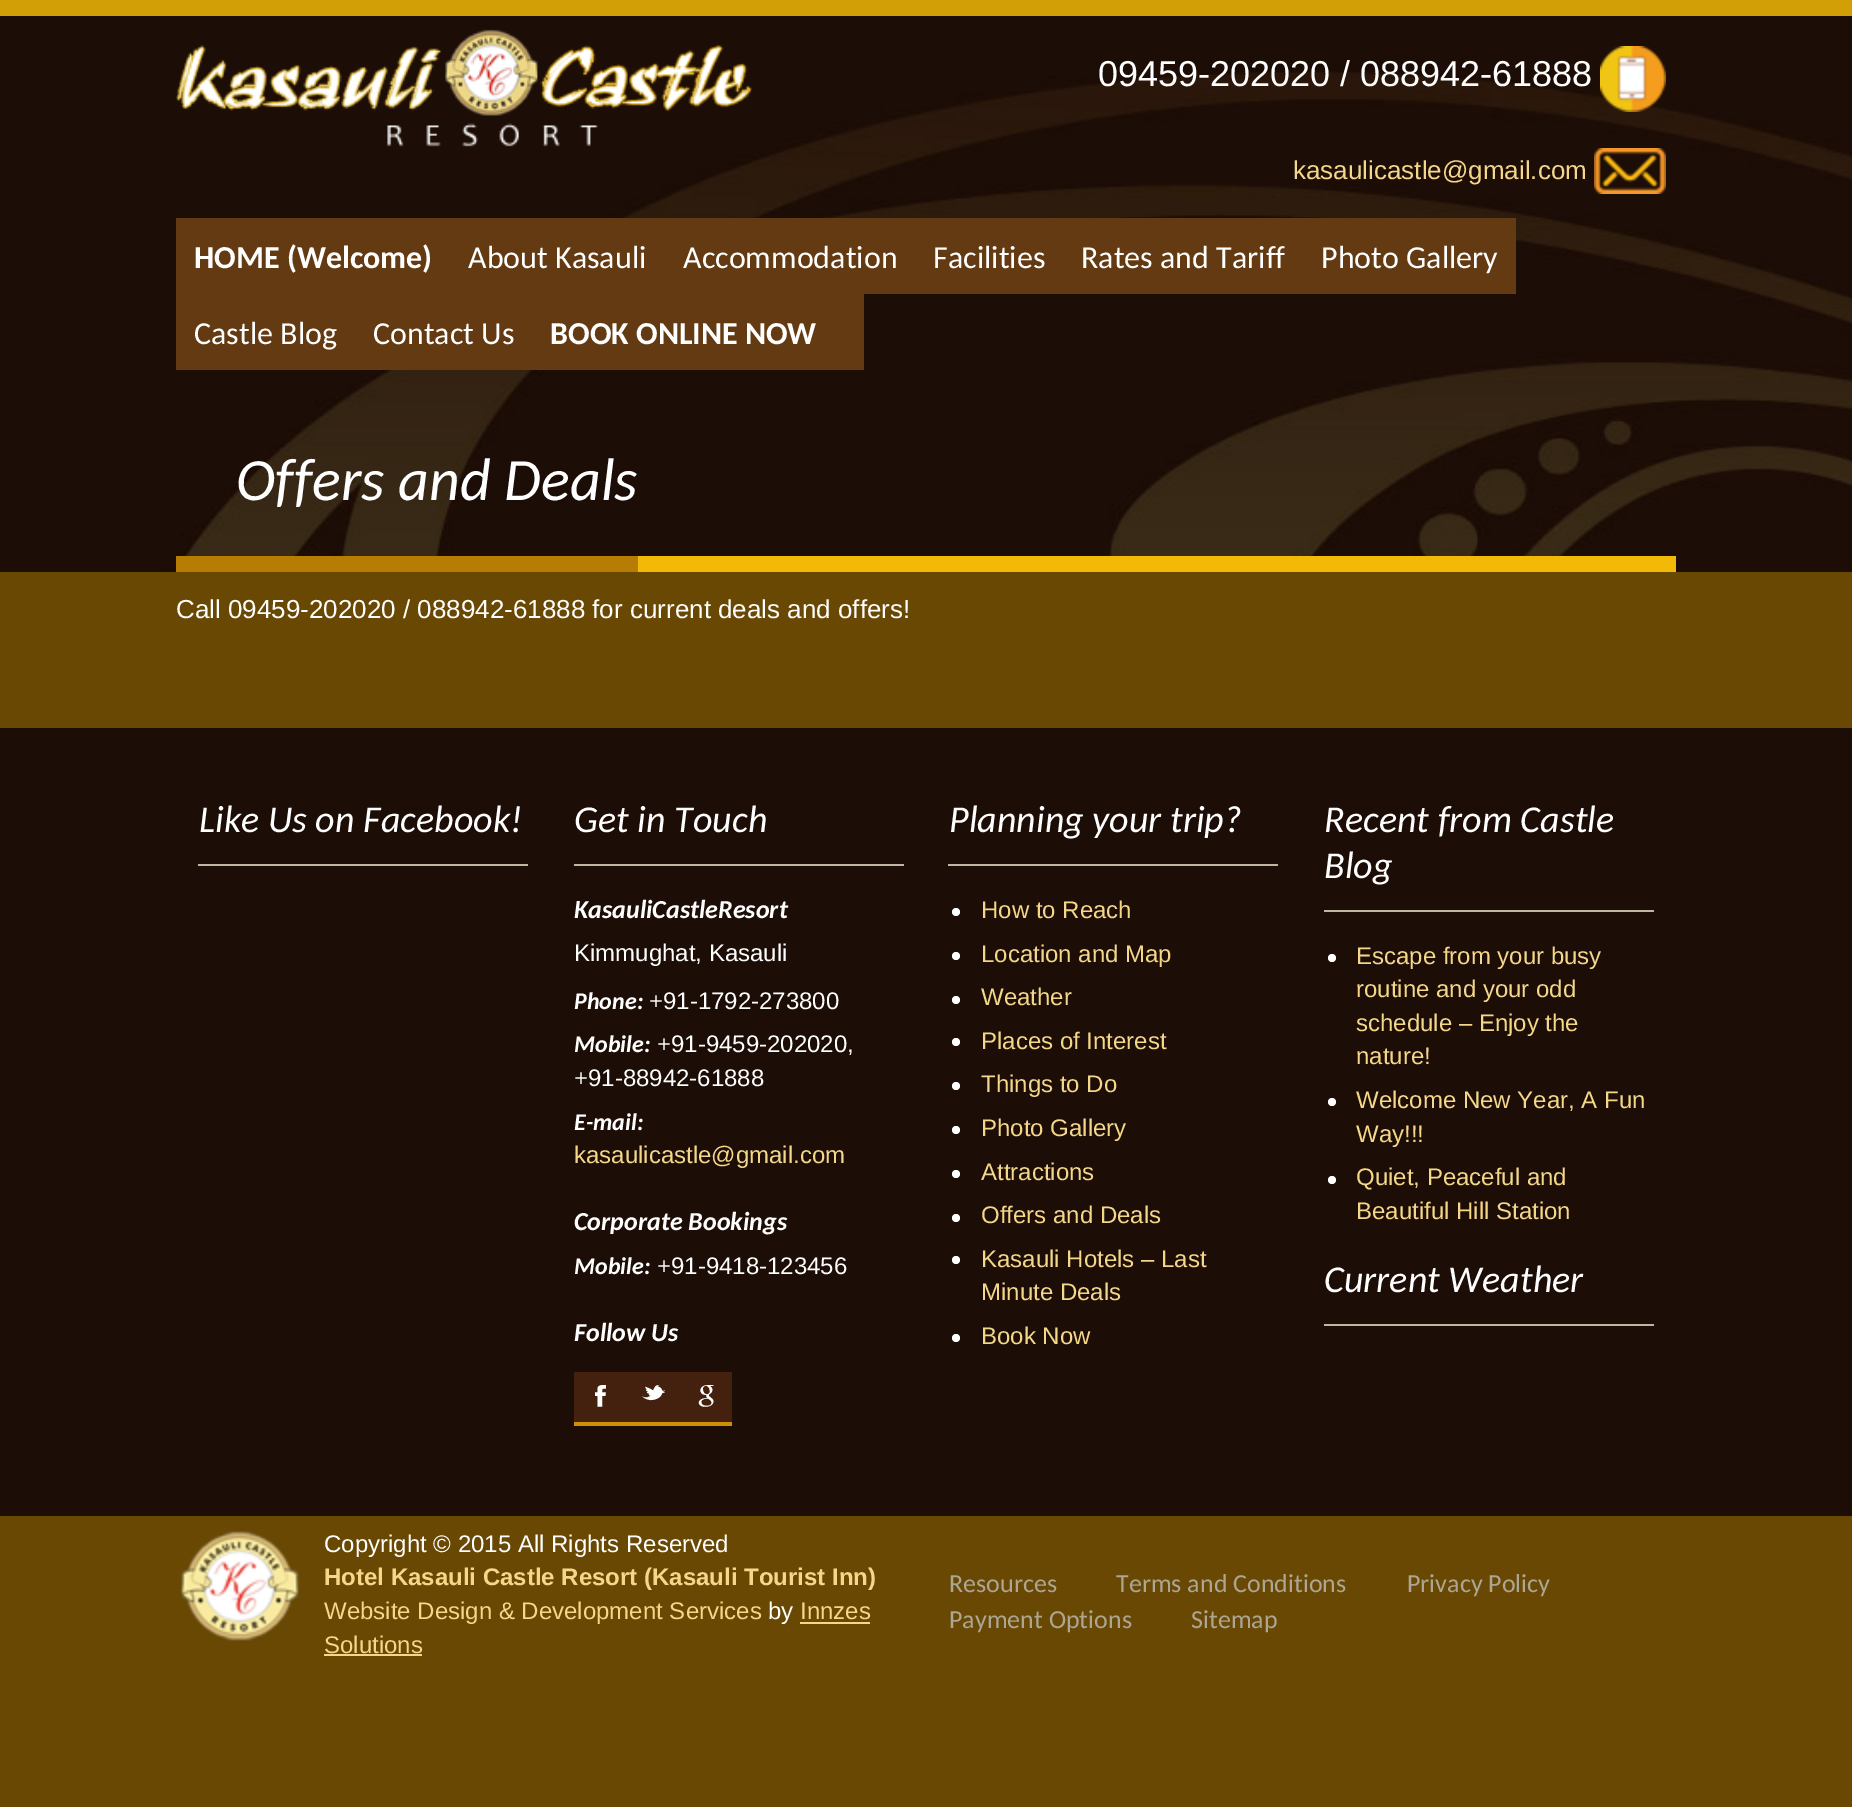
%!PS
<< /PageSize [1852 1807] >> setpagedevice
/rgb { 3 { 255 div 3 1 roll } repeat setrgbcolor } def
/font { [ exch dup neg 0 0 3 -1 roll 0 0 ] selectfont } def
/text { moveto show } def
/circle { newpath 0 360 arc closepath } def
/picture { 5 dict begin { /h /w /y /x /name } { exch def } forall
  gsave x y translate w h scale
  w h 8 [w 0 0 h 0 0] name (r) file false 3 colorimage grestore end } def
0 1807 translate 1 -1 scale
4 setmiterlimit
105 72 3 rgb
0 0 1852 1807 rectfill
211 159 7 rgb
0 0 1852 16 rectfill
(img_04.rgb) 0 16 1852 556 picture
(img_01.rgb) 176 29 576 118 picture
(img_02.rgb) 1600 46 66 66 picture
(img_03.rgb) 1594 148 72 46 picture
100 58 18 rgb
176 218 1340 76 rectfill
176 294 688 76 rectfill
183 124 4 rgb
176 556 462 16 rectfill
243 185 7 rgb
638 556 1038 16 rectfill
28 13 6 rgb
0 728 1852 788 rectfill
189 183 164 rgb
198 864 330 2 rectfill
574 864 330 2 rectfill
68 32 15 rgb
574 1372 158 50 rectfill
208 142 4 rgb
574 1422 158 4 rectfill
189 183 164 rgb
948 864 330 2 rectfill
255 255 255 rgb
956 912 4 circle fill
956 956 4 circle fill
956 1000 4 circle fill
956 1042 4 circle fill
956 1086 4 circle fill
956 1130 4 circle fill
956 1174 4 circle fill
956 1218 4 circle fill
956 1260 4 circle fill
956 1338 4 circle fill
189 183 164 rgb
1324 910 330 2 rectfill
255 255 255 rgb
1332 958 4 circle fill
1332 1102 4 circle fill
1332 1180 4 circle fill
189 183 164 rgb
1324 1324 330 2 rectfill
(img_05.rgb) 181 1531 118 110 picture
244 215 136 rgb
800 1622 70 2 rectfill
324 1654 98 2 rectfill
/LiberationSans-Regular 36 font
255 255 255 rgb
(09459-202020 / 088942-61888) 1098 86 text
/LiberationSans-Regular 26 font
244 215 136 rgb
(kasaulicastle@gmail.com) 1293 179 text
/Carlito-Bold 32 font
255 255 255 rgb
(HOME \(Welcome\)) 194 268 text
/Carlito-Regular 32 font
(About Kasauli) 468 268 text
(Accommodation) 683 268 text
(Facilities) 933 268 text
(Rates and Tariff) 1081 268 text
(Photo Gallery) 1321 268 text
(Castle Blog) 194 344 text
(Contact Us) 373 344 text
/Carlito-Bold 32 font
(BOOK ONLINE NOW) 550 344 text
/Carlito-Italic 60 font
(Offers and Deals) 236 500 text
/LiberationSans-Regular 26 font
(Call 09459-202020 / 088942-61888 for current deals and offers!) 176 618 text
/Carlito-Italic 38 font
(Like Us on Facebook!) 199 832 text
(Get in Touch) 574 832 text
/Carlito-BoldItalic 26 font
(KasauliCastleResort) 574 918 text
/LiberationSans-Regular 24 font
(Kimmughat, Kasauli) 574 961 text
/Carlito-BoldItalic 24 font
(Phone:) 574 1009 text
/LiberationSans-Regular 24 font
(+91-1792-273800) 649 1009 text
/Carlito-BoldItalic 24 font
(Mobile:) 574 1052 text
/LiberationSans-Regular 24 font
(+91-9459-202020,) 657 1052 text
(+91-88942-61888) 574 1086 text
/Carlito-BoldItalic 24 font
(E-mail:) 574 1130 text
/LiberationSans-Regular 24 font
244 215 136 rgb
(kasaulicastle@gmail.com) 574 1163 text
/Carlito-BoldItalic 26 font
255 255 255 rgb
(Corporate Bookings) 574 1230 text
/Carlito-BoldItalic 24 font
(Mobile:) 574 1274 text
/LiberationSans-Regular 24 font
(+91-9418-123456) 657 1274 text
/Carlito-BoldItalic 26 font
(Follow Us) 574 1341 text
/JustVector-Regular 30 font
(F) 588 1406 text
(t) 641 1406 text
(g) 694 1406 text
/Carlito-Italic 38 font
(Planning your trip?) 949 832 text
/LiberationSans-Regular 24 font
244 215 136 rgb
(How to Reach) 981 918 text
(Location and Map) 981 962 text
(Weather) 981 1005 text
(Places of Interest) 981 1049 text
(Things to Do) 981 1092 text
(Photo Gallery) 981 1136 text
(Attractions) 981 1180 text
(Offers and Deals) 981 1223 text
(Kasauli Hotels – Last) 981 1267 text
(Minute Deals) 981 1300 text
(Book Now) 981 1344 text
/Carlito-Italic 38 font
255 255 255 rgb
(Recent from Castle) 1324 832 text
(Blog) 1324 878 text
/LiberationSans-Regular 24 font
244 215 136 rgb
(Escape from your busy) 1356 964 text
(routine and your odd) 1356 997 text
(schedule – Enjoy the) 1356 1031 text
(nature!) 1356 1064 text
(Welcome New Year, A Fun) 1356 1108 text
(Way!!!) 1356 1142 text
(Quiet, Peaceful and) 1356 1185 text
(Beautiful Hill Station) 1356 1219 text
/Carlito-Italic 38 font
255 255 255 rgb
(Current Weather) 1324 1292 text
/LiberationSans-Regular 24 font
(Copyright © 2015 All Rights Reserved) 324 1552 text
/LiberationSans-Bold 24 font
244 215 136 rgb
(Hotel Kasauli Castle Resort \(Kasauli Tourist Inn\)) 324 1585 text
/LiberationSans-Regular 24 font
(Website Design & Development Services) 324 1619 text
255 255 255 rgb
(by) 768 1619 text
244 215 136 rgb
(Innzes) 800 1619 text
(Solutions) 324 1653 text
/Carlito-Regular 26 font
172 166 147 rgb
(Resources) 949 1592 text
(Terms and Conditions) 1116 1592 text
(Privacy Policy) 1407 1592 text
(Payment Options) 949 1628 text
(Sitemap) 1191 1628 text
showpage
